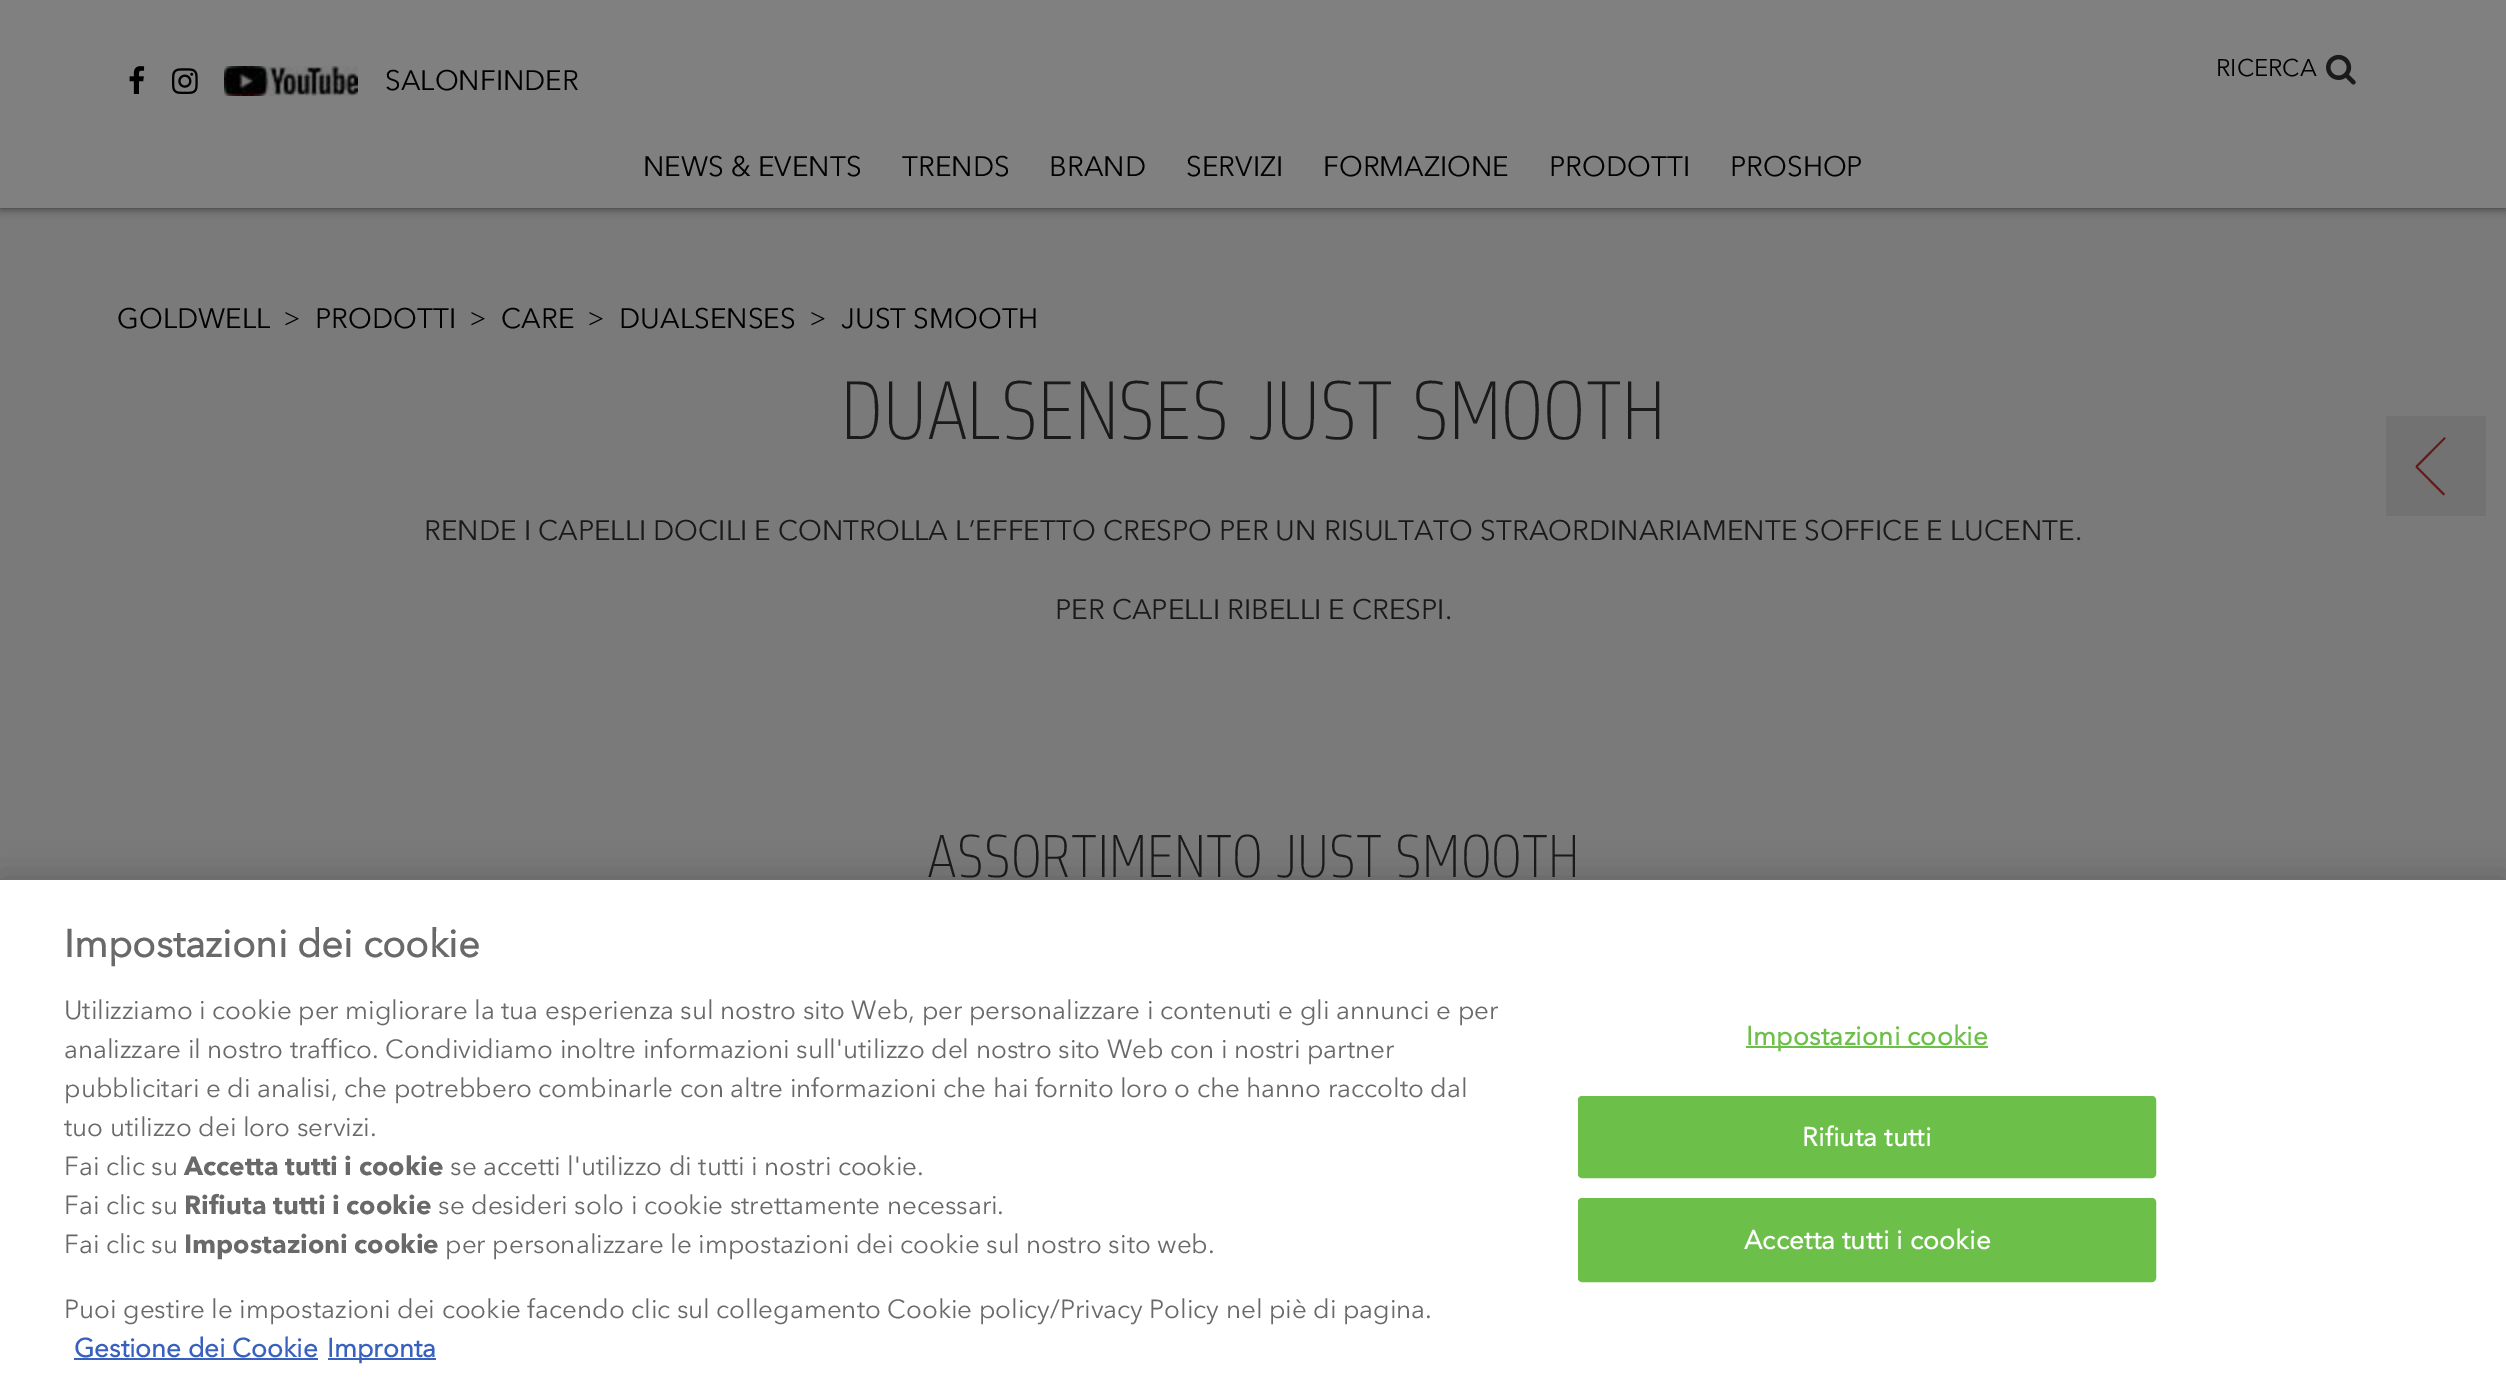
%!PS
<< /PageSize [2506 1388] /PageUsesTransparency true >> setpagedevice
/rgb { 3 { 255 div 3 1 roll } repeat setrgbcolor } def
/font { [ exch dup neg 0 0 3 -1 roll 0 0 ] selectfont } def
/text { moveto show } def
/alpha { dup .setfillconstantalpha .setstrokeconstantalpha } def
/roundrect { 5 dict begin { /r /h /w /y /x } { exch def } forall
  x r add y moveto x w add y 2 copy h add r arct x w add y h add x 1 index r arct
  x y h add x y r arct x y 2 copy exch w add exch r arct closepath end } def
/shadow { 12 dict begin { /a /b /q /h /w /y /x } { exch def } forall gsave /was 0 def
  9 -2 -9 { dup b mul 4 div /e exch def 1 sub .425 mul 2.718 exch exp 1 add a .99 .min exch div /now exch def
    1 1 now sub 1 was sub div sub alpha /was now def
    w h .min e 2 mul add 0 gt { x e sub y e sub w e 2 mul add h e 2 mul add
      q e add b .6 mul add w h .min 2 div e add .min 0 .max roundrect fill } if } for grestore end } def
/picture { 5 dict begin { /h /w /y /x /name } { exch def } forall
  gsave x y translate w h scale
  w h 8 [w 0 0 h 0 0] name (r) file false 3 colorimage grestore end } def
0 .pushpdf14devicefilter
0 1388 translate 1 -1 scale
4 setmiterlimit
122 122 122 rgb
0 0 2506 1388 rectfill
43 43 43 rgb
0 0 2506 208 0 5 1 shadow
128 128 128 rgb
0 0 2506 208 rectfill
(img_01.rgb) 129 66 16 28 picture
(img_02.rgb) 172 68 26 26 picture
(img_03.rgb) 224 66 134 30 picture
(img_04.rgb) 2326 54 30 31 picture
114 114 114 rgb
2386 416 100 100 rectfill
102 23 24 rgb
2416.5 465.5 moveto 28.5 28.5 rlineto -1.5 1.5 rlineto -28 -28.5 rlineto closepath fill
2416 465.5 moveto 28.5 -28.5 rlineto 1 1.5 rlineto -28 28.5 rlineto closepath fill
0 0 0 rgb
0 880 2506 508 0 18 0.2 shadow
255 255 255 rgb
0 880 2506 508 rectfill
56 96 190 rgb
74 1358 244 2 rectfill
328 1358 108 2 rectfill
108 192 74 rgb
1746 1046 242 2 rectfill
1579 1097 576 80 3 roundrect gsave fill grestore
2 setlinewidth
stroke
1579 1199 576 82 3 roundrect gsave fill grestore
stroke
/Avenir-Regular 28 font
0 0 0 rgb
(SALONFINDER) 385 90 text
(NEWS & EVENTS) 643 176 text
(TRENDS) 902 176 text
(BRAND) 1049 176 text
(SERVIZI) 1186 176 text
(FORMAZIONE) 1323 176 text
(PRODOTTI) 1549 176 text
(PROSHOP) 1730 176 text
/Avenir-Regular 24 font
(RICERCA) 2216 76 text
/Avenir-Regular 28 font
(GOLDWELL) 117 328 text
/LiberationSerif-Regular 28 font
(>) 284 328 text
/Avenir-Regular 28 font
(PRODOTTI) 315 328 text
/LiberationSerif-Regular 28 font
(>) 470 328 text
/Avenir-Regular 28 font
(CARE) 501 328 text
/LiberationSerif-Regular 28 font
(>) 588 328 text
/Avenir-Regular 28 font
(DUALSENSES) 619 328 text
/LiberationSerif-Regular 28 font
(>) 810 328 text
/Avenir-Regular 28 font
(JUST SMOOTH) 841 328 text
/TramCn-Thin 88 font
26 26 26 rgb
(DUALSENSES JUST SMOOTH) 841 439 text
/Avenir-Regular 28 font
(RENDE I CAPELLI DOCILI E CONTROLLA L’EFFETTO CRESPO PER UN RISULTATO STRAORDINARIAMENTE SOFFICE E LUCENTE.) 424 540 text
(PER CAPELLI RIBELLI E CRESPI.) 1055 619 text
/TramCn-Thin 64 font
(ASSORTIMENTO JUST SMOOTH) 927 877 text
/Avenir-Bold 38.4 font
105 105 105 rgb
(Impostazioni dei cookie) 64 957 text
/Avenir-Regular 26.02 font
(Utilizziamo i cookie per migliorare la tua esperienza sul nostro sito Web, per personalizzare i contenuti e gli annunci e per) 64 1019 text
(analizzare il nostro traffico. Condividiamo inoltre informazioni sull'utilizzo del nostro sito Web con i nostri partner) 64 1058 text
(pubblicitari e di analisi, che potrebbero combinarle con altre informazioni che hai fornito loro o che hanno raccolto dal) 64 1097 text
(tuo utilizzo dei loro servizi.) 64 1136 text
(Fai clic su) 64 1175 text
/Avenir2-Bold 26.02 font
(Accetta tutti i cookie) 184 1175 text
/Avenir-Regular 26.02 font
(se accetti l'utilizzo di tutti i nostri cookie.) 450 1175 text
(Fai clic su) 64 1214 text
/Avenir2-Bold 26.02 font
(Rifiuta tutti i cookie) 184 1214 text
/Avenir-Regular 26.02 font
(se desideri solo i cookie strettamente necessari.) 438 1214 text
(Fai clic su) 64 1253 text
/Avenir2-Bold 26.02 font
(Impostazioni cookie) 184 1253 text
/Avenir-Regular 26.02 font
(per personalizzare le impostazioni dei cookie sul nostro sito web.) 445 1253 text
(Puoi gestire le impostazioni dei cookie facendo clic sul collegamento Cookie policy/Privacy Policy nel piè di pagina.) 64 1318 text
/Avenir-Bold 26.02 font
56 96 190 rgb
(Gestione dei Cookie) 74 1357 text
(Impronta) 327 1357 text
108 192 74 rgb
1746 1045 moveto 0.25 0 (Impostazioni cookie) ashow
255 255 255 rgb
1802 1146 moveto 0.25 0 (Rifiuta tutti) ashow
1744 1249 moveto 0.25 0 (Accetta tutti i cookie) ashow
.poppdf14devicefilter showpage
